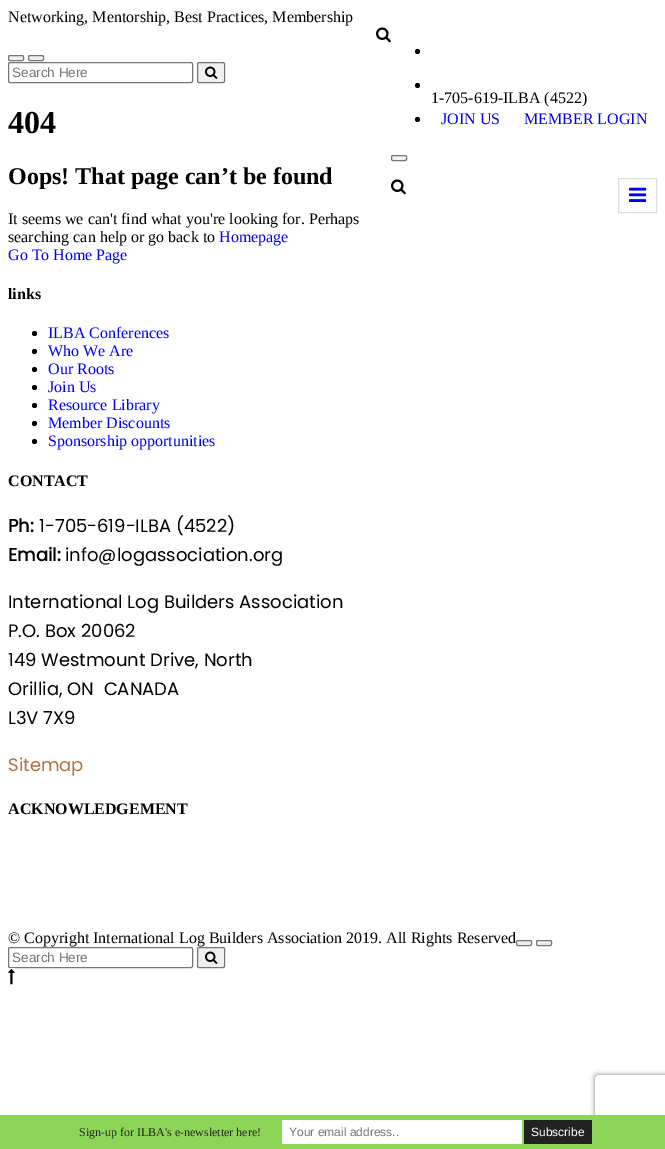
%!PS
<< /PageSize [665 1149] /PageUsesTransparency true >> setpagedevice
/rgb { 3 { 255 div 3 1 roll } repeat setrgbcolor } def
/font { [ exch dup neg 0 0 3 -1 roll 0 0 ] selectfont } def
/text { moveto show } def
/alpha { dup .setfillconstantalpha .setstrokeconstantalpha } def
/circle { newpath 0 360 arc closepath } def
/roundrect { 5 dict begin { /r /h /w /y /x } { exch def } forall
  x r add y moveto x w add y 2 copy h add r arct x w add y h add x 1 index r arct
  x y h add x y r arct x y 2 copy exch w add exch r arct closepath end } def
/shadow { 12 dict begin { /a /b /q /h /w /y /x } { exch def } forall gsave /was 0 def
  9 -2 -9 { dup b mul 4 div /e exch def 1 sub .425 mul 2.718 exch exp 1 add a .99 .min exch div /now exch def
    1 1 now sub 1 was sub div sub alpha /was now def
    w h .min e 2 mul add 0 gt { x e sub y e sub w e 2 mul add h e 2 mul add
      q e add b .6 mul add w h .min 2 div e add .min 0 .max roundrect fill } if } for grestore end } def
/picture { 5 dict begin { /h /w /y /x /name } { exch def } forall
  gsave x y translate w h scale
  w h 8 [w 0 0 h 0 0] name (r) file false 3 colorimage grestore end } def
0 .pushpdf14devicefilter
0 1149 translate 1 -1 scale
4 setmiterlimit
255 255 255 rgb
0 0 665 1149 rectfill
(img_01.rgb) 376 27 15 16 picture
0 0 0 rgb
417.5 51.5 2.5 circle fill
417.5 85.5 2.5 circle fill
417.5 119.5 2.5 circle fill
239 239 239 rgb
391.5 155.5 15 5 1.5 roundrect gsave fill grestore
118 118 118 rgb
stroke
221 221 221 rgb
618.5 178.5 38 34 rectstroke
(img_02.rgb) 629 187 18 15 picture
(img_01.rgb) 391 179 15 16 picture
239 239 239 rgb
8.5 55.5 15 5 1.5 roundrect gsave fill grestore
118 118 118 rgb
stroke
239 239 239 rgb
28.5 55.5 15 5 1.5 roundrect gsave fill grestore
118 118 118 rgb
stroke
8.5 62.5 184 20 1.5 roundrect stroke
239 239 239 rgb
197.5 62.5 27 20 1.5 roundrect gsave fill grestore
118 118 118 rgb
stroke
(img_03.rgb) 205 66 13 13 picture
0 0 0 rgb
34.5 333.5 2.5 circle fill
34.5 351.5 2.5 circle fill
34.5 369.5 2.5 circle fill
34.5 387.5 2.5 circle fill
34.5 405.5 2.5 circle fill
34.5 423.5 2.5 circle fill
34.5 441.5 2.5 circle fill
239 239 239 rgb
516.5 940.5 15 5 1.5 roundrect gsave fill grestore
118 118 118 rgb
stroke
239 239 239 rgb
536.5 940.5 15 5 1.5 roundrect gsave fill grestore
118 118 118 rgb
stroke
8.5 947.5 184 20 1.5 roundrect stroke
239 239 239 rgb
197.5 947.5 27 20 1.5 roundrect gsave fill grestore
118 118 118 rgb
stroke
(img_03.rgb) 205 951 13 13 picture
(img_04.rgb) 8 968 7 17 picture
gsave
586 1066 moveto 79 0 rlineto 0 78 rlineto -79 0 rlineto closepath 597 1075 moveto 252 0 rlineto 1 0 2 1 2 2 rcurveto 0 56 rlineto 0 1 -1 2 -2 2 rcurveto -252 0 rlineto -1 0 -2 -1 -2 -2 rcurveto 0 -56 rlineto 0 -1 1 -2 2 -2 rcurveto closepath eoclip newpath
128 128 128 rgb
595 1075 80 60 2 2.5 1 shadow
grestore
140 214 87 rgb
0 1115 665 34 rectfill
255 255 255 rgb
282 1120 240 24 rectfill
34 34 34 rgb
524 1120 68 24 rectfill
/LiberationSerif-Regular 16 font
0 0 0 rgb
(Networking, Mentorship, Best Practices, Membership) 8 22 text
(1-705-619-ILBA \(4522\)) 431 103 text
0 0 238 rgb
(JOIN US) 441 124 text
(MEMBER LOGIN) 524 124 text
/LiberationSans-Regular 13.5 font
117 117 117 rgb
(Search Here) 12 77 text
/LiberationSerif-Bold 32 font
0 0 0 rgb
(404) 8 133 text
/LiberationSerif-Bold 24 font
(Oops! That page can’t be found) 8 184 text
/LiberationSerif-Regular 16 font
(It seems we can't find what you're looking for. Perhaps) 8 224 text
(searching can help or go back to) 8 242 text
0 0 238 rgb
(Homepage) 219 242 text
(Go To Home Page) 8 260 text
/LiberationSerif-Bold 16 font
0 0 0 rgb
(links) 8 299 text
/LiberationSerif-Regular 16 font
0 0 238 rgb
(ILBA Conferences) 48 338 text
(Who We Are) 48 356 text
(Our Roots) 48 374 text
(Join Us) 48 392 text
(Resource Library) 48 410 text
(Member Discounts) 48 428 text
(Sponsorship opportunities) 48 446 text
/LiberationSerif-Bold 16 font
0 0 0 rgb
(CONTACT) 8 486 text
/Poppins-Bold 18 font
(Ph:) 8 532 text
/Poppins-Regular 18 font
(1-705-619-ILBA \(4522\)) 39 532 text
/Poppins-Bold 18 font
(Email:) 8 561 text
/Poppins-Regular 18 font
(info@logassociation.org) 65 561 text
(International Log Builders Association) 8 608 text
(P.O. Box 20062) 8 637 text
(149 Westmount Drive, North) 8 666 text
(Orillia, ON  CANADA) 8 695 text
(L3V 7X9) 8 724 text
171 116 66 rgb
(Sitemap) 8 771 text
/LiberationSerif-Bold 16 font
0 0 0 rgb
(ACKNOWLEDGEMENT) 8 814 text
/LiberationSerif-Regular 16 font
(© Copyright International Log Builders Association 2019. All Rights Reserved) 8 943 text
/LiberationSans-Regular 13.5 font
117 117 117 rgb
(Search Here) 12 962 text
/LiberationSerif-Regular 12 font
34 34 34 rgb
(Sign-up for ILBA's e-newsletter here!) 79 1136 text
/LiberationSans-Regular 12 font
117 117 117 rgb
(Your email address..) 289 1136 text
255 255 255 rgb
(Subscribe) 531 1136 text
.poppdf14devicefilter showpage
